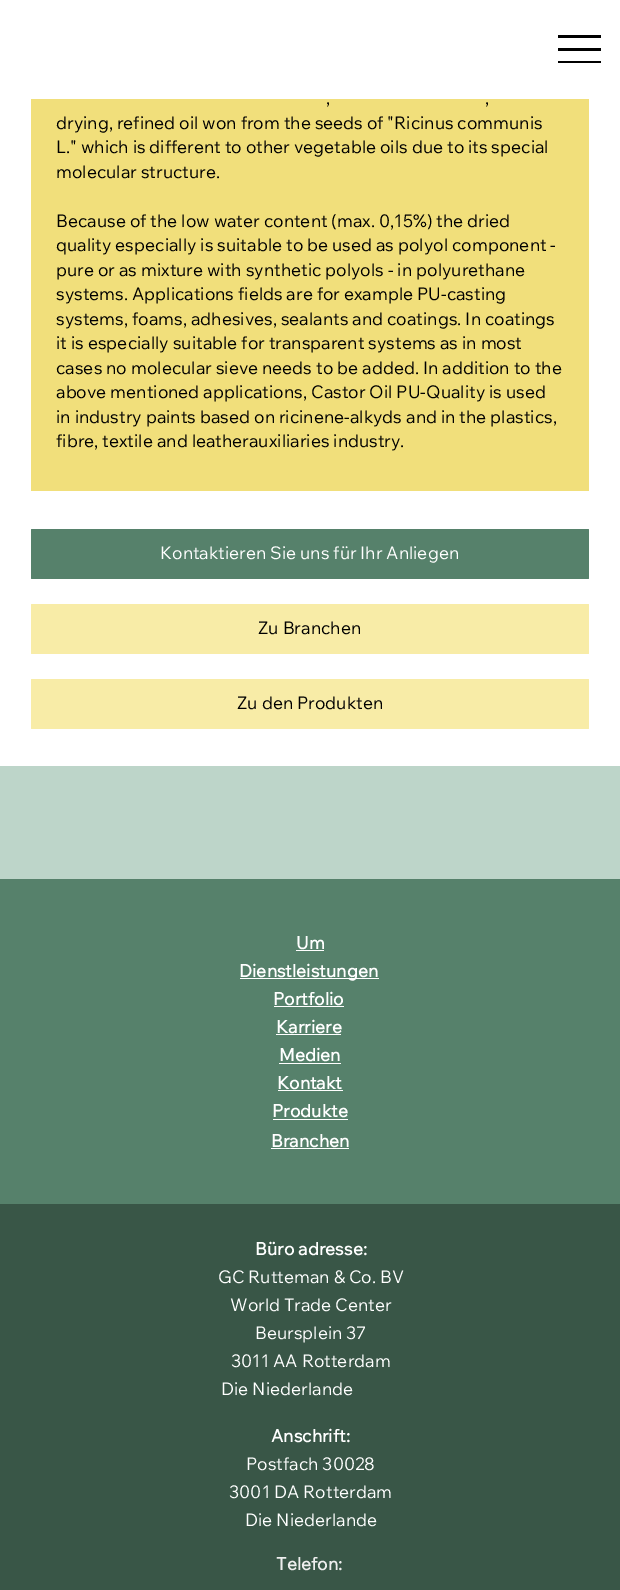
%!PS
<< /PageSize [620 1590] >> setpagedevice
/rgb { 3 { 255 div 3 1 roll } repeat setrgbcolor } def
/font { [ exch dup neg 0 0 3 -1 roll 0 0 ] selectfont } def
/text { moveto show } def
/roundrect { 5 dict begin { /r /h /w /y /x } { exch def } forall
  x r add y moveto x w add y 2 copy h add r arct x w add y h add x 1 index r arct
  x y h add x y r arct x y 2 copy exch w add exch r arct closepath end } def
0 1590 translate 1 -1 scale
4 setmiterlimit
255 255 255 rgb
0 0 620 1590 rectfill
0 0 0 rgb
558 35 43 3 rectfill
558 48 43 3 rectfill
558 61 43 2 rectfill
241 223 123 rgb
31 99 558 392 rectfill
86 129 107 rgb
31 529 558 50 1 roundrect fill
248 236 167 rgb
31 604 558 50 1 roundrect fill
31 679 558 50 1 roundrect fill
86 129 107 rgb
0 879 620 325 rectfill
189 213 201 rgb
0 766 620 113 rectfill
255 255 255 rgb
296 950 28 1 rectfill
240 978 139 1 rectfill
274 1006 70 1 rectfill
276 1034 65 1 rectfill
279 1063 62 1 rectfill
278 1090 65 1 rectfill
273 1119 75 1 rectfill
271 1148 78 1 rectfill
57 86 71 rgb
0 1204 620 386 rectfill
/WixMadeforText-Regular 17.5 font
0 0 0 rgb
(,) 326 104 text
(,) 485 104 text
(drying, refined oil won from the seeds of "Ricinus communis) 56 129 text
(L." which is different to other vegetable oils due to its special) 56 153 text
(molecular structure.) 56 178 text
(Because of the low water content \(max. 0,15%\) the dried) 56 227 text
(quality especially is suitable to be used as polyol component -) 56 251 text
(pure or as mixture with synthetic polyols - in polyurethane) 56 276 text
(systems. Applications fields are for example PU-casting) 56 300 text
(systems, foams, adhesives, sealants and coatings. In coatings) 56 325 text
(it is especially suitable for transparent systems as in most) 56 349 text
(cases no molecular sieve needs to be added. In addition to the) 56 374 text
(above mentioned applications, Castor Oil PU-Quality is used) 56 398 text
(in industry paints based on ricinene-alkyds and in the plastics,) 56 423 text
(fibre, textile and leatherauxiliaries industry.) 56 447 text
255 255 255 rgb
(Kontaktieren Sie uns für Ihr Anliegen) 160 559 text
0 0 0 rgb
(Zu Branchen) 258 634 text
(Zu den Produkten) 237 709 text
/WixMadeforText-Bold 17.5 font
255 255 255 rgb
(Um) 296 949 text
(Dienstleistungen) 239 977 text
(Portfolio) 273 1005 text
(Karriere) 276 1033 text
(Medien) 279 1061 text
(Kontakt) 277 1089 text
(Produkte) 272 1117 text
(Branchen) 271 1147 text
(Büro adresse:) 255 1255 text
/WixMadeforText-Regular 17.5 font
(GC Rutteman & Co. BV) 218 1283 text
(World Trade Center) 230 1311 text
(Beursplein 37) 255 1339 text
(3011 AA Rotterdam) 231 1367 text
(Die Niederlande) 221 1395 text
/WixMadeforText-Bold 17.5 font
(Anschrift:) 271 1442 text
/WixMadeforText-Regular 17.5 font
(Postfach 30028) 246 1470 text
(3001 DA Rotterdam) 229 1498 text
(Die Niederlande) 245 1526 text
/WixMadeforText-Bold 17.5 font
238 238 238 rgb
(Telefon:) 276 1570 text
showpage
